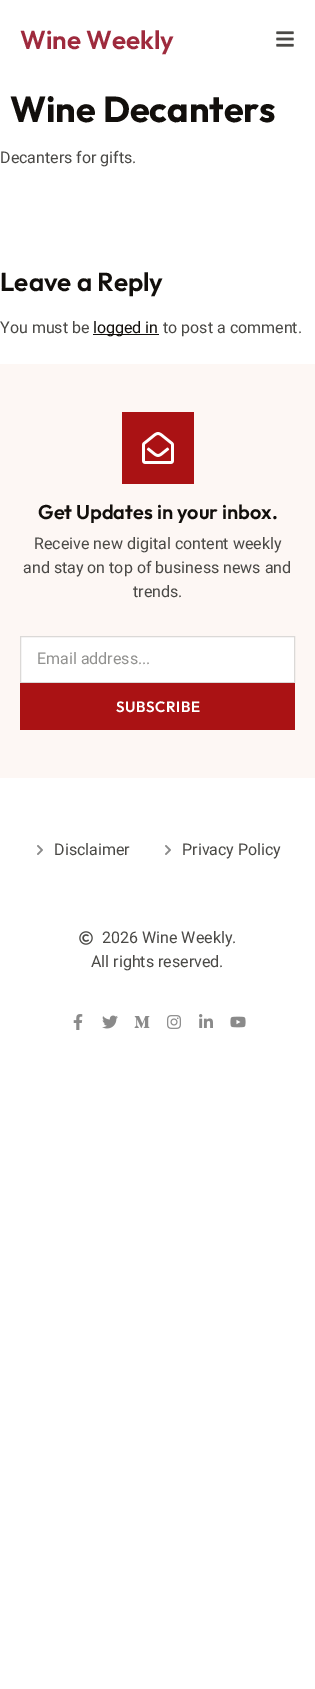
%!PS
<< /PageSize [315 1689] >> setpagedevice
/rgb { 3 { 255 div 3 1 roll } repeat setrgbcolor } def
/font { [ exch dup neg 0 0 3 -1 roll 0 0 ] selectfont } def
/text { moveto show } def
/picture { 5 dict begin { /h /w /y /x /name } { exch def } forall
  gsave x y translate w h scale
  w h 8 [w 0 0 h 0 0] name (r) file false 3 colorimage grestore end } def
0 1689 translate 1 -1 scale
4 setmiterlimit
255 255 255 rgb
0 0 315 1689 rectfill
(img_01.rgb) 276 31 18 16 picture
18 15 12 rgb
93 334 66 1 rectfill
253 247 244 rgb
0 364 315 414 rectfill
170 18 20 rgb
122 412 72 72 rectfill
(img_02.rgb) 142 432 32 32 picture
255 255 255 rgb
20.5 636.5 moveto 274 0 rlineto 0 46 rlineto -274 0 rlineto closepath gsave fill grestore
219 217 215 rgb
stroke
170 18 20 rgb
20 683 275 47 rectfill
(img_03.rgb) 37 845 6 10 picture
(img_03.rgb) 165 845 6 10 picture
(img_04.rgb) 79 931 14 14 picture
(img_05.rgb) 73 1014 10 16 picture
(img_06.rgb) 102 1015 16 14 picture
(img_07.rgb) 134 1016 16 12 picture
(img_08.rgb) 167 1015 14 14 picture
(img_09.rgb) 199 1014 14 14 picture
(img_10.rgb) 230 1016 16 12 picture
/Outfit-SemiBold 26 font
158 42 61 rgb
(Wine Weekly) 20 49 text
/Outfit-Bold 36 font
18 15 12 rgb
(Wine Decanters) 10 122 text
/Heebo-Regular 16 font
74 73 70 rgb
(Decanters for gifts.) 0 163 text
/Outfit-SemiBold 26 font
18 15 12 rgb
(Leave a Reply) 0 291 text
/Heebo-Regular 16 font
74 73 70 rgb
(You must be) 0 333 text
18 15 12 rgb
(logged in) 93 333 text
74 73 70 rgb
(to post a comment.) 163 333 text
/Outfit-SemiBold 20 font
18 15 12 rgb
(Get Updates in your inbox.) 38 519 text
/Heebo-Regular 16 font
74 73 70 rgb
(Receive new digital content weekly) 34 549 text
(and stay on top of business news and) 23 573 text
(trends.) 133 597 text
146 146 144 rgb
(Email address...) 37 664 text
/Outfit-SemiBold 15 font
255 255 255 rgb
116 712 moveto 0.5 0 (SUBSCRIBE) ashow
/Heebo-Regular 16 font
74 73 70 rgb
(Disclaimer) 54 855 text
(Privacy Policy) 182 855 text
(2026 Wine Weekly.) 102 943 text
(All rights reserved.) 91 967 text
showpage
